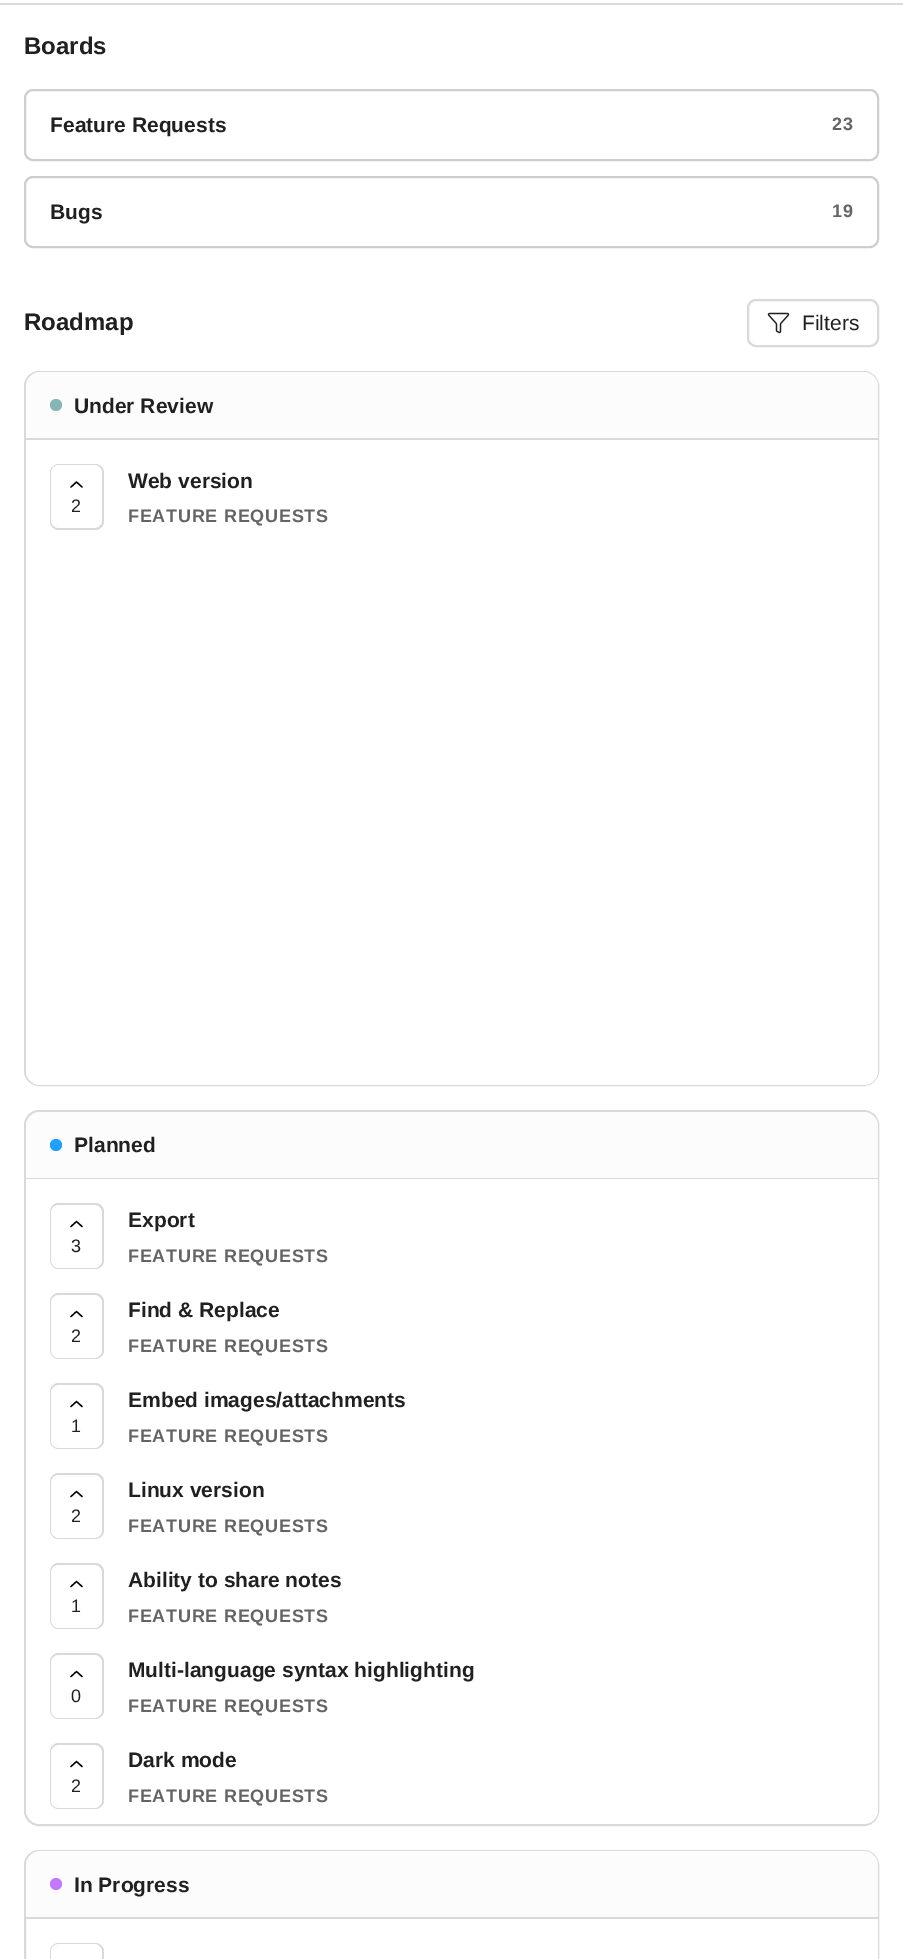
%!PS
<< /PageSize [903 1959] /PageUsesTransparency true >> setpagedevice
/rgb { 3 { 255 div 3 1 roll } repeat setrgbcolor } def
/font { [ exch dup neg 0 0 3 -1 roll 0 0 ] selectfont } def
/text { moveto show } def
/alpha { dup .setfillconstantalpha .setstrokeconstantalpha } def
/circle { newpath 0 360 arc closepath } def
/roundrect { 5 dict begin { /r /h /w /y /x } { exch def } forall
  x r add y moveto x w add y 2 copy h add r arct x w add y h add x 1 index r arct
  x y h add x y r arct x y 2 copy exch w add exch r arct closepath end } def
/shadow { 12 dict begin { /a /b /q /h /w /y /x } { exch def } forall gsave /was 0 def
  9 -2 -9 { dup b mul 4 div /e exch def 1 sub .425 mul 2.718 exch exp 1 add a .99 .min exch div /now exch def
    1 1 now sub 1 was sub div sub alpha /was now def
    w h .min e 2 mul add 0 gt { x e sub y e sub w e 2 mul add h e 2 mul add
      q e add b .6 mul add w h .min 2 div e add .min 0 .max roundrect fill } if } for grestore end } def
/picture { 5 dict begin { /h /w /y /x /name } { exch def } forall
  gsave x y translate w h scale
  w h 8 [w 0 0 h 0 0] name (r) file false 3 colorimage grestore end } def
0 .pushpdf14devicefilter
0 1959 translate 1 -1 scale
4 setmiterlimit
255 255 255 rgb
0 0 903 1959 rectfill
217 217 217 rgb
0 3 903 2 rectfill
206 206 206 rgb
2 setlinewidth
25 90 853 70 8 roundrect stroke
25 177 853 70 8 roundrect stroke
217 217 217 rgb
748 300 130 46 8 roundrect stroke
(img_01.rgb) 767 312 23 22 picture
25 372 853 713 14 roundrect stroke
gsave
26 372 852 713 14 roundrect clip newpath
249 249 249 rgb
26 375 852 68 15 4 1 shadow
grestore
gsave
26 372 852 713 14 roundrect clip newpath
252 252 252 rgb
41 372 moveto 822 0 rlineto 8.5 0 15 6.5 15 15 rcurveto 0 53 rlineto -852 0 rlineto 0 -53 rlineto 0 -8.5 6.5 -15 15 -15 rcurveto closepath fill
grestore
26 438 852 2 rectfill
133 181 181 rgb
56 405 6 circle fill
255 255 255 rgb
26 440 moveto 852 0 rlineto 0 631 rlineto 0 7.5 -6.5 14 -14 14 rcurveto -824 0 rlineto -7.5 0 -14 -6.5 -14 -14 rcurveto closepath fill
217 217 217 rgb
59 464 moveto 36 0 rlineto 5 0 9 4 9 9 rcurveto 0 48 rlineto 0 5 -4 9 -9 9 rcurveto -36 0 rlineto -5 0 -9 -4 -9 -9 rcurveto 0 -48 rlineto 0 -5 4 -9 9 -9 rcurveto closepath fill
255 255 255 rgb
51 465 51 63 8 roundrect fill
0 0 0 rgb
1.3 setlinewidth
1 setlinecap
1 setlinejoin
82 487 moveto -5.5 -5 rlineto -5.5 5 rlineto stroke
217 217 217 rgb
2 setlinewidth
0 setlinecap
0 setlinejoin
25 1111 853 714 14 roundrect stroke
gsave
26 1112 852 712 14 roundrect clip newpath
249 249 249 rgb
26 1115 852 67 15 4 1 shadow
grestore
gsave
26 1112 852 712 14 roundrect clip newpath
252 252 252 rgb
41 1112 moveto 822 0 rlineto 8.5 0 15 6.5 15 15 rcurveto 0 52 rlineto -852 0 rlineto 0 -52 rlineto 0 -8.5 6.5 -15 15 -15 rcurveto closepath fill
grestore
26 1178 852 1 rectfill
31 160 255 rgb
56 1145 6 circle fill
255 255 255 rgb
26 1179 moveto 852 0 rlineto 0 631 rlineto 0 7.5 -6.5 14 -14 14 rcurveto -824 0 rlineto -7.5 0 -14 -6.5 -14 -14 rcurveto closepath fill
217 217 217 rgb
59 1203 moveto 36 0 rlineto 5 0 9 4 9 9 rcurveto 0 48 rlineto 0 5 -4 9 -9 9 rcurveto -36 0 rlineto -5 0 -9 -4 -9 -9 rcurveto 0 -48 rlineto 0 -5 4 -9 9 -9 rcurveto closepath fill
255 255 255 rgb
51 1205 51 63 8 roundrect fill
0 0 0 rgb
1.3 setlinewidth
1 setlinecap
1 setlinejoin
82 1226.5 moveto -5.5 -5 rlineto -5.5 5 rlineto stroke
217 217 217 rgb
59 1293 moveto 36 0 rlineto 5 0 9 4 9 9 rcurveto 0 48 rlineto 0 5 -4 9 -9 9 rcurveto -36 0 rlineto -5 0 -9 -4 -9 -9 rcurveto 0 -48 rlineto 0 -5 4 -9 9 -9 rcurveto closepath fill
255 255 255 rgb
51 1295 51 63 8 roundrect fill
0 0 0 rgb
82 1316.5 moveto -5.5 -5 rlineto -5.5 5 rlineto stroke
217 217 217 rgb
59 1383 moveto 36 0 rlineto 5 0 9 4 9 9 rcurveto 0 48 rlineto 0 5 -4 9 -9 9 rcurveto -36 0 rlineto -5 0 -9 -4 -9 -9 rcurveto 0 -48 rlineto 0 -5 4 -9 9 -9 rcurveto closepath fill
255 255 255 rgb
51 1385 51 63 8 roundrect fill
0 0 0 rgb
82 1406.5 moveto -5.5 -5 rlineto -5.5 5 rlineto stroke
217 217 217 rgb
59 1473 moveto 36 0 rlineto 5 0 9 4 9 9 rcurveto 0 48 rlineto 0 5 -4 9 -9 9 rcurveto -36 0 rlineto -5 0 -9 -4 -9 -9 rcurveto 0 -48 rlineto 0 -5 4 -9 9 -9 rcurveto closepath fill
255 255 255 rgb
51 1475 51 63 8 roundrect fill
0 0 0 rgb
82 1496.5 moveto -5.5 -5 rlineto -5.5 5 rlineto stroke
217 217 217 rgb
59 1563 moveto 36 0 rlineto 5 0 9 4 9 9 rcurveto 0 48 rlineto 0 5 -4 9 -9 9 rcurveto -36 0 rlineto -5 0 -9 -4 -9 -9 rcurveto 0 -48 rlineto 0 -5 4 -9 9 -9 rcurveto closepath fill
255 255 255 rgb
51 1565 51 63 8 roundrect fill
0 0 0 rgb
82 1586.5 moveto -5.5 -5 rlineto -5.5 5 rlineto stroke
217 217 217 rgb
59 1653 moveto 36 0 rlineto 5 0 9 4 9 9 rcurveto 0 48 rlineto 0 5 -4 9 -9 9 rcurveto -36 0 rlineto -5 0 -9 -4 -9 -9 rcurveto 0 -48 rlineto 0 -5 4 -9 9 -9 rcurveto closepath fill
255 255 255 rgb
51 1655 51 63 8 roundrect fill
0 0 0 rgb
82 1676.5 moveto -5.5 -5 rlineto -5.5 5 rlineto stroke
217 217 217 rgb
59 1743 moveto 36 0 rlineto 5 0 9 4 9 9 rcurveto 0 48 rlineto 0 5 -4 9 -9 9 rcurveto -36 0 rlineto -5 0 -9 -4 -9 -9 rcurveto 0 -48 rlineto 0 -5 4 -9 9 -9 rcurveto closepath fill
255 255 255 rgb
51 1745 51 63 8 roundrect fill
0 0 0 rgb
82 1766.5 moveto -5.5 -5 rlineto -5.5 5 rlineto stroke
217 217 217 rgb
2 setlinewidth
0 setlinecap
0 setlinejoin
25 1851 853 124 14 roundrect stroke
gsave
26 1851 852 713 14 roundrect clip newpath
249 249 249 rgb
26 1854 852 68 15 4 1 shadow
grestore
gsave
26 1851 852 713 14 roundrect clip newpath
252 252 252 rgb
41 1851 moveto 822 0 rlineto 8.5 0 15 6.5 15 15 rcurveto 0 53 rlineto -852 0 rlineto 0 -53 rlineto 0 -8.5 6.5 -15 15 -15 rcurveto closepath fill
grestore
26 1917 852 2 rectfill
193 122 255 rgb
56 1884 6 circle fill
255 255 255 rgb
33 1919 845 40 rectfill
217 217 217 rgb
59 1943 moveto 36 0 rlineto 5 0 9 4 9 9 rcurveto 0 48 rlineto 0 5 -4 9 -9 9 rcurveto -36 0 rlineto -5 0 -9 -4 -9 -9 rcurveto 0 -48 rlineto 0 -5 4 -9 9 -9 rcurveto closepath fill
255 255 255 rgb
51 1944 51 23 8 roundrect fill
/LiberationSans-Bold 24 font
32 32 32 rgb
(Boards) 24 54 text
/LiberationSans-Bold 21 font
(Feature Requests) 50 132 text
/LiberationSans-Bold 18 font
100 100 100 rgb
832 130 moveto 0.75 0 (23) ashow
/LiberationSans-Bold 21 font
32 32 32 rgb
(Bugs) 50 219 text
/LiberationSans-Bold 18 font
100 100 100 rgb
832 217 moveto 0.75 0 (19) ashow
/LiberationSans-Bold 24 font
32 32 32 rgb
(Roadmap) 24 330 text
/LiberationSans-Regular 21 font
(Filters) 802 330 text
/LiberationSans-Bold 21 font
(Under Review) 74 413 text
/LiberationSans-Regular 18 font
(2) 71 512 text
/LiberationSans-Bold 21 font
(Web version) 128 488 text
/LiberationSans-Bold 18 font
100 100 100 rgb
128 522 moveto 0.75 0 (FEATURE REQUESTS) ashow
/LiberationSans-Bold 21 font
32 32 32 rgb
(Planned) 74 1152 text
/LiberationSans-Regular 18 font
(3) 71 1252 text
/LiberationSans-Bold 21 font
(Export) 128 1227 text
/LiberationSans-Bold 18 font
100 100 100 rgb
128 1262 moveto 0.75 0 (FEATURE REQUESTS) ashow
/LiberationSans-Regular 18 font
32 32 32 rgb
(2) 71 1342 text
/LiberationSans-Bold 21 font
(Find & Replace) 128 1317 text
/LiberationSans-Bold 18 font
100 100 100 rgb
128 1352 moveto 0.75 0 (FEATURE REQUESTS) ashow
/LiberationSans-Regular 18 font
32 32 32 rgb
(1) 71 1432 text
/LiberationSans-Bold 21 font
(Embed images/attachments) 128 1407 text
/LiberationSans-Bold 18 font
100 100 100 rgb
128 1442 moveto 0.75 0 (FEATURE REQUESTS) ashow
/LiberationSans-Regular 18 font
32 32 32 rgb
(2) 71 1522 text
/LiberationSans-Bold 21 font
(Linux version) 128 1497 text
/LiberationSans-Bold 18 font
100 100 100 rgb
128 1532 moveto 0.75 0 (FEATURE REQUESTS) ashow
/LiberationSans-Regular 18 font
32 32 32 rgb
(1) 71 1612 text
/LiberationSans-Bold 21 font
(Ability to share notes) 128 1587 text
/LiberationSans-Bold 18 font
100 100 100 rgb
128 1622 moveto 0.75 0 (FEATURE REQUESTS) ashow
/LiberationSans-Regular 18 font
32 32 32 rgb
(0) 71 1702 text
/LiberationSans-Bold 21 font
(Multi-language syntax highlighting) 128 1677 text
/LiberationSans-Bold 18 font
100 100 100 rgb
128 1712 moveto 0.75 0 (FEATURE REQUESTS) ashow
/LiberationSans-Regular 18 font
32 32 32 rgb
(2) 71 1792 text
/LiberationSans-Bold 21 font
(Dark mode) 128 1767 text
/LiberationSans-Bold 18 font
100 100 100 rgb
128 1802 moveto 0.75 0 (FEATURE REQUESTS) ashow
/LiberationSans-Bold 21 font
32 32 32 rgb
(In Progress) 74 1892 text
.poppdf14devicefilter showpage
